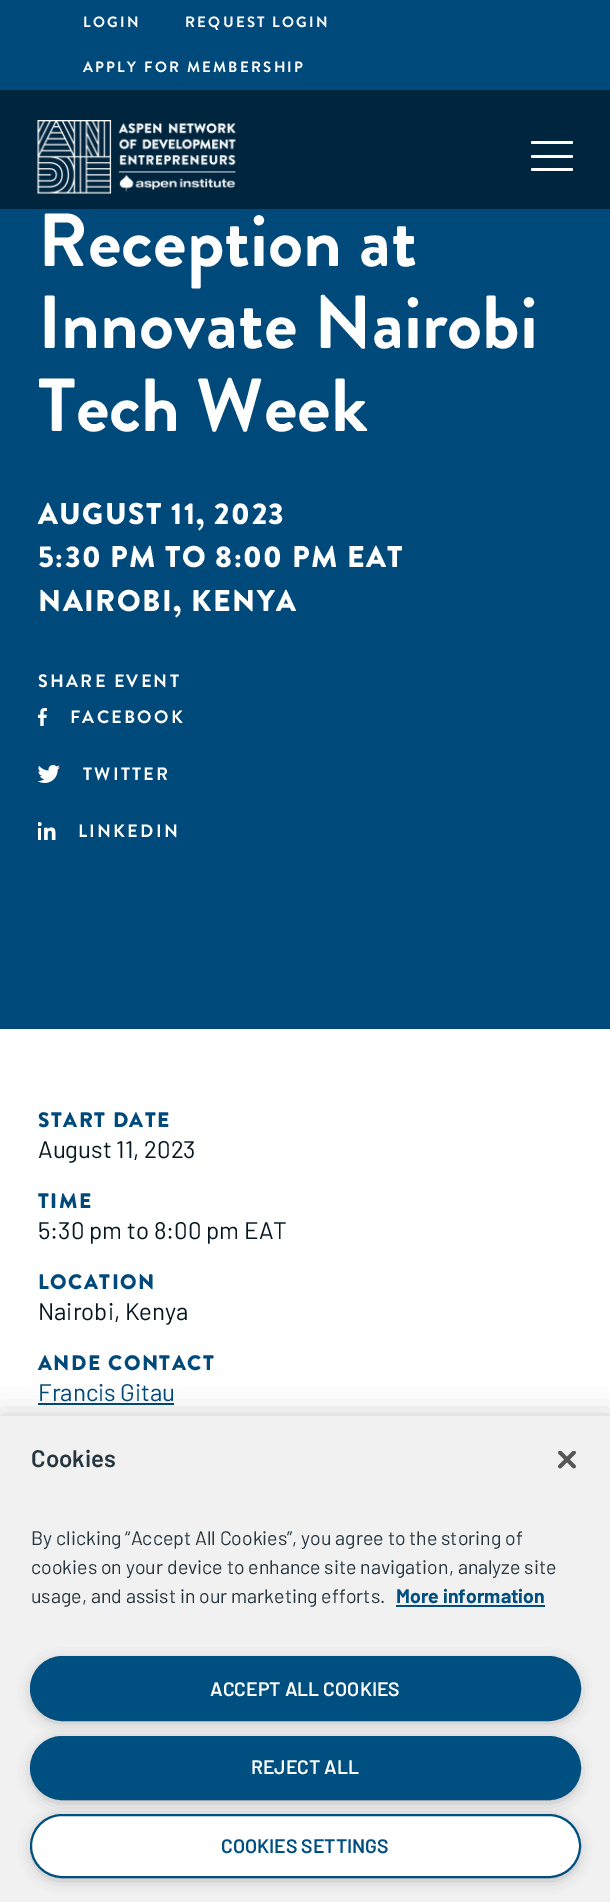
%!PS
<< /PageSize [610 1902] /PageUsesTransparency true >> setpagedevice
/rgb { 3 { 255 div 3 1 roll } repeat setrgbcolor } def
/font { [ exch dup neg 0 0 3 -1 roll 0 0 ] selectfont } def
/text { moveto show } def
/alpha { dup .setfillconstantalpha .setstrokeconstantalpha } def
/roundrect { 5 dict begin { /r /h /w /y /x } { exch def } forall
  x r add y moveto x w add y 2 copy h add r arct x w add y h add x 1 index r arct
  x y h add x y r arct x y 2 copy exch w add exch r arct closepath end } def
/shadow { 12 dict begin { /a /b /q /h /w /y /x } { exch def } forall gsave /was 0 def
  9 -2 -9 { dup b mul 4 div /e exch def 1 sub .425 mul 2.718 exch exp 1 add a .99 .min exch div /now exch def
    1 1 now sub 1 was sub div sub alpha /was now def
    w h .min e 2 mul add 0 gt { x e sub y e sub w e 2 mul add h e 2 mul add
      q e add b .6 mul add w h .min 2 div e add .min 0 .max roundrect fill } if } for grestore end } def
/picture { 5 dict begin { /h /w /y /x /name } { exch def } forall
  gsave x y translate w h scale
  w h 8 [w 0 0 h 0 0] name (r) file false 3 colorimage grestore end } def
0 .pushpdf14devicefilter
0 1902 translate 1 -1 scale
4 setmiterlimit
255 255 255 rgb
0 0 610 1902 rectfill
0 73 123 rgb
0 0 610 90 rectfill
0 37 62 rgb
0 90 610 119 rectfill
(img_01.rgb) 37 120 199 74 picture
255 255 255 rgb
531 141 42 3 1.5 roundrect fill
531 155 42 3 1.5 roundrect fill
531 168 42 3 1.5 roundrect fill
0 73 123 rgb
0 209 610 820 rectfill
(img_02.rgb) 38 708 9 18 picture
(img_03.rgb) 38 765 22 18 picture
(img_04.rgb) 38 822 18 18 picture
38 1403 136 2 rectfill
0 0 0 rgb
0 1416 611 486 0 13.5 0.2 shadow
241 241 241 rgb
0 1416 610 486 rectfill
0 79 129 rgb
396 1605 149 2 rectfill
153 153 153 rgb
35 1664 541 55 27.5 7.5 1 shadow
0 79 129 rgb
31 1657 549 63 31.5 roundrect gsave fill grestore
2 setlinewidth
stroke
153 153 153 rgb
35 1743 541 56 28 7.5 1 shadow
0 79 129 rgb
31 1737 549 62 31 roundrect gsave fill grestore
stroke
153 153 153 rgb
35 1821 541 56 28 7.5 1 shadow
255 255 255 rgb
31 1815 549 62 31 roundrect gsave fill grestore
0 79 129 rgb
stroke
(img_05.rgb) 558 1451 18 18 picture
/BrandonGrotesque-Bold 15 font
255 255 255 rgb
83 27 moveto 2.25 0 (LOGIN) ashow
185 27 moveto 2.25 0 (REQUEST LOGIN) ashow
83 72 moveto 2.25 0 (APPLY FOR MEMBERSHIP) ashow
/BrandonGrotesque-Bold 75 font
(Reception at) 38 266 text
(Innovate Nairobi) 38 348 text
(Tech Week) 38 431 text
/BrandonGrotesque-Black 30 font
38 524 moveto 1.5 0 (AUGUST 11, 2023) ashow
38 567 moveto 1.5 0 (5:30 PM TO 8:00 PM EAT) ashow
38 611 moveto 1.5 0 (NAIROBI, KENYA) ashow
/BrandonGrotesque-Bold 18 font
38 687 moveto 2.25 0 (SHARE EVENT) ashow
70 723 moveto 2.25 0 (FACEBOOK) ashow
83 780 moveto 2.25 0 (TWITTER) ashow
78 837 moveto 2.25 0 (LINKEDIN) ashow
/BrandonGrotesque-Black 21 font
0 73 123 rgb
38 1127 moveto 1.5 0 (START DATE) ashow
/Barlow-Regular 24 font
6 23 34 rgb
(August 11, 2023) 38 1158 text
/BrandonGrotesque-Black 21 font
0 73 123 rgb
38 1208 moveto 1.5 0 (TIME) ashow
/Barlow-Regular 24 font
6 23 34 rgb
(5:30 pm to 8:00 pm EAT) 38 1239 text
/BrandonGrotesque-Black 21 font
0 73 123 rgb
38 1289 moveto 1.5 0 (LOCATION) ashow
/Barlow-Regular 24 font
6 23 34 rgb
(Nairobi, Kenya) 38 1320 text
/BrandonGrotesque-Black 21 font
0 73 123 rgb
38 1370 moveto 1.5 0 (ANDE CONTACT) ashow
/Barlow-Regular 24 font
(Francis Gitau) 38 1401 text
/Barlow-SemiBold 24 font
38 54 64 rgb
(Cookies) 31 1467 text
/Barlow-Regular 19.5 font
(By clicking “Accept All Cookies”, you agree to the storing of) 31 1545 text
(cookies on your device to enhance site navigation, analyze site) 31 1574 text
(usage, and assist in our marketing efforts.) 31 1603 text
/Barlow-Bold 19.5 font
0 79 129 rgb
(More information) 396 1603 text
/Barlow-SemiBold 19.5 font
255 255 255 rgb
(ACCEPT ALL COOKIES) 210 1696 text
(REJECT ALL) 251 1774 text
0 79 129 rgb
(COOKIES SETTINGS) 221 1853 text
.poppdf14devicefilter showpage
